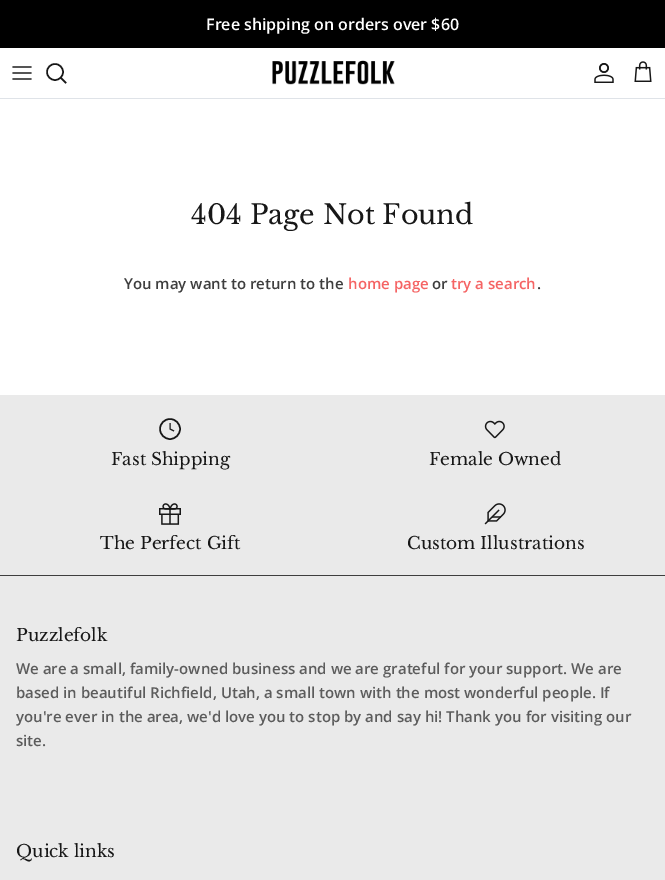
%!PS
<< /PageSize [665 880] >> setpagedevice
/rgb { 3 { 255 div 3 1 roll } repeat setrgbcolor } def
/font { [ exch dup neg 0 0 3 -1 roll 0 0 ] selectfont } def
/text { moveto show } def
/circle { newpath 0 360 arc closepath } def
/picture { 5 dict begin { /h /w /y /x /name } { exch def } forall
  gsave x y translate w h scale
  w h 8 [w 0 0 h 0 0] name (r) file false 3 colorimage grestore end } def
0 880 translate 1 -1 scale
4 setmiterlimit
255 255 255 rgb
0 0 665 880 rectfill
0 0 0 rgb
0 0 665 48 rectfill
223 227 232 rgb
0 98 665 1 rectfill
(img_01.rgb) 12 66 20 14 picture
23 23 23 rgb
1.5 setlinewidth
55 72 8 circle stroke
2 setlinecap
61 78 moveto 4.5 4.5 rlineto stroke
(img_02.rgb) 272 60 123 25 picture
(img_03.rgb) 594 63 20 20 picture
(img_04.rgb) 634 61 18 21 picture
234 234 234 rgb
0 395 665 485 rectfill
23 23 23 rgb
0 setlinecap
170 429 10 circle stroke
1 setlinewidth
170 423 moveto 0 6 rlineto 4 2 rlineto stroke
(img_05.rgb) 484 420 21 19 picture
(img_06.rgb) 159 503 22 22 picture
(img_07.rgb) 484 503 22 22 picture
62 62 62 rgb
0 575 665 1 rectfill
/OpenSans-SemiBold 16 font
255 255 255 rgb
(Free shipping on orders over $60) 206 30 text
/LibreBaskerville-Regular 27 font
23 23 23 rgb
(404 Page Not Found) 191 224 text
/OpenSans-SemiBold 15 font
62 62 62 rgb
(You may want to return to the) 124 289 text
245 100 100 rgb
(home page) 348 289 text
62 62 62 rgb
(or) 432 289 text
245 100 100 rgb
(try a search) 451 289 text
62 62 62 rgb
(.) 537 289 text
/LibreBaskerville-Regular 17 font
23 23 23 rgb
(Fast Shipping) 111 465 text
(Female Owned) 429 465 text
(The Perfect Gift) 100 549 text
(Custom Illustrations) 407 549 text
(Puzzlefolk) 16 641 text
/OpenSans-SemiBold 15 font
92 92 92 rgb
(We are a small, family-owned business and we are grateful for your support. We are) 16 674 text
(based in beautiful Richfield, Utah, a small town with the most wonderful people. If) 16 698 text
(you're ever in the area, we'd love you to stop by and say hi! Thank you for visiting our) 16 722 text
(site.) 16 746 text
/LibreBaskerville-Regular 17 font
23 23 23 rgb
(Quick links) 16 857 text
showpage
